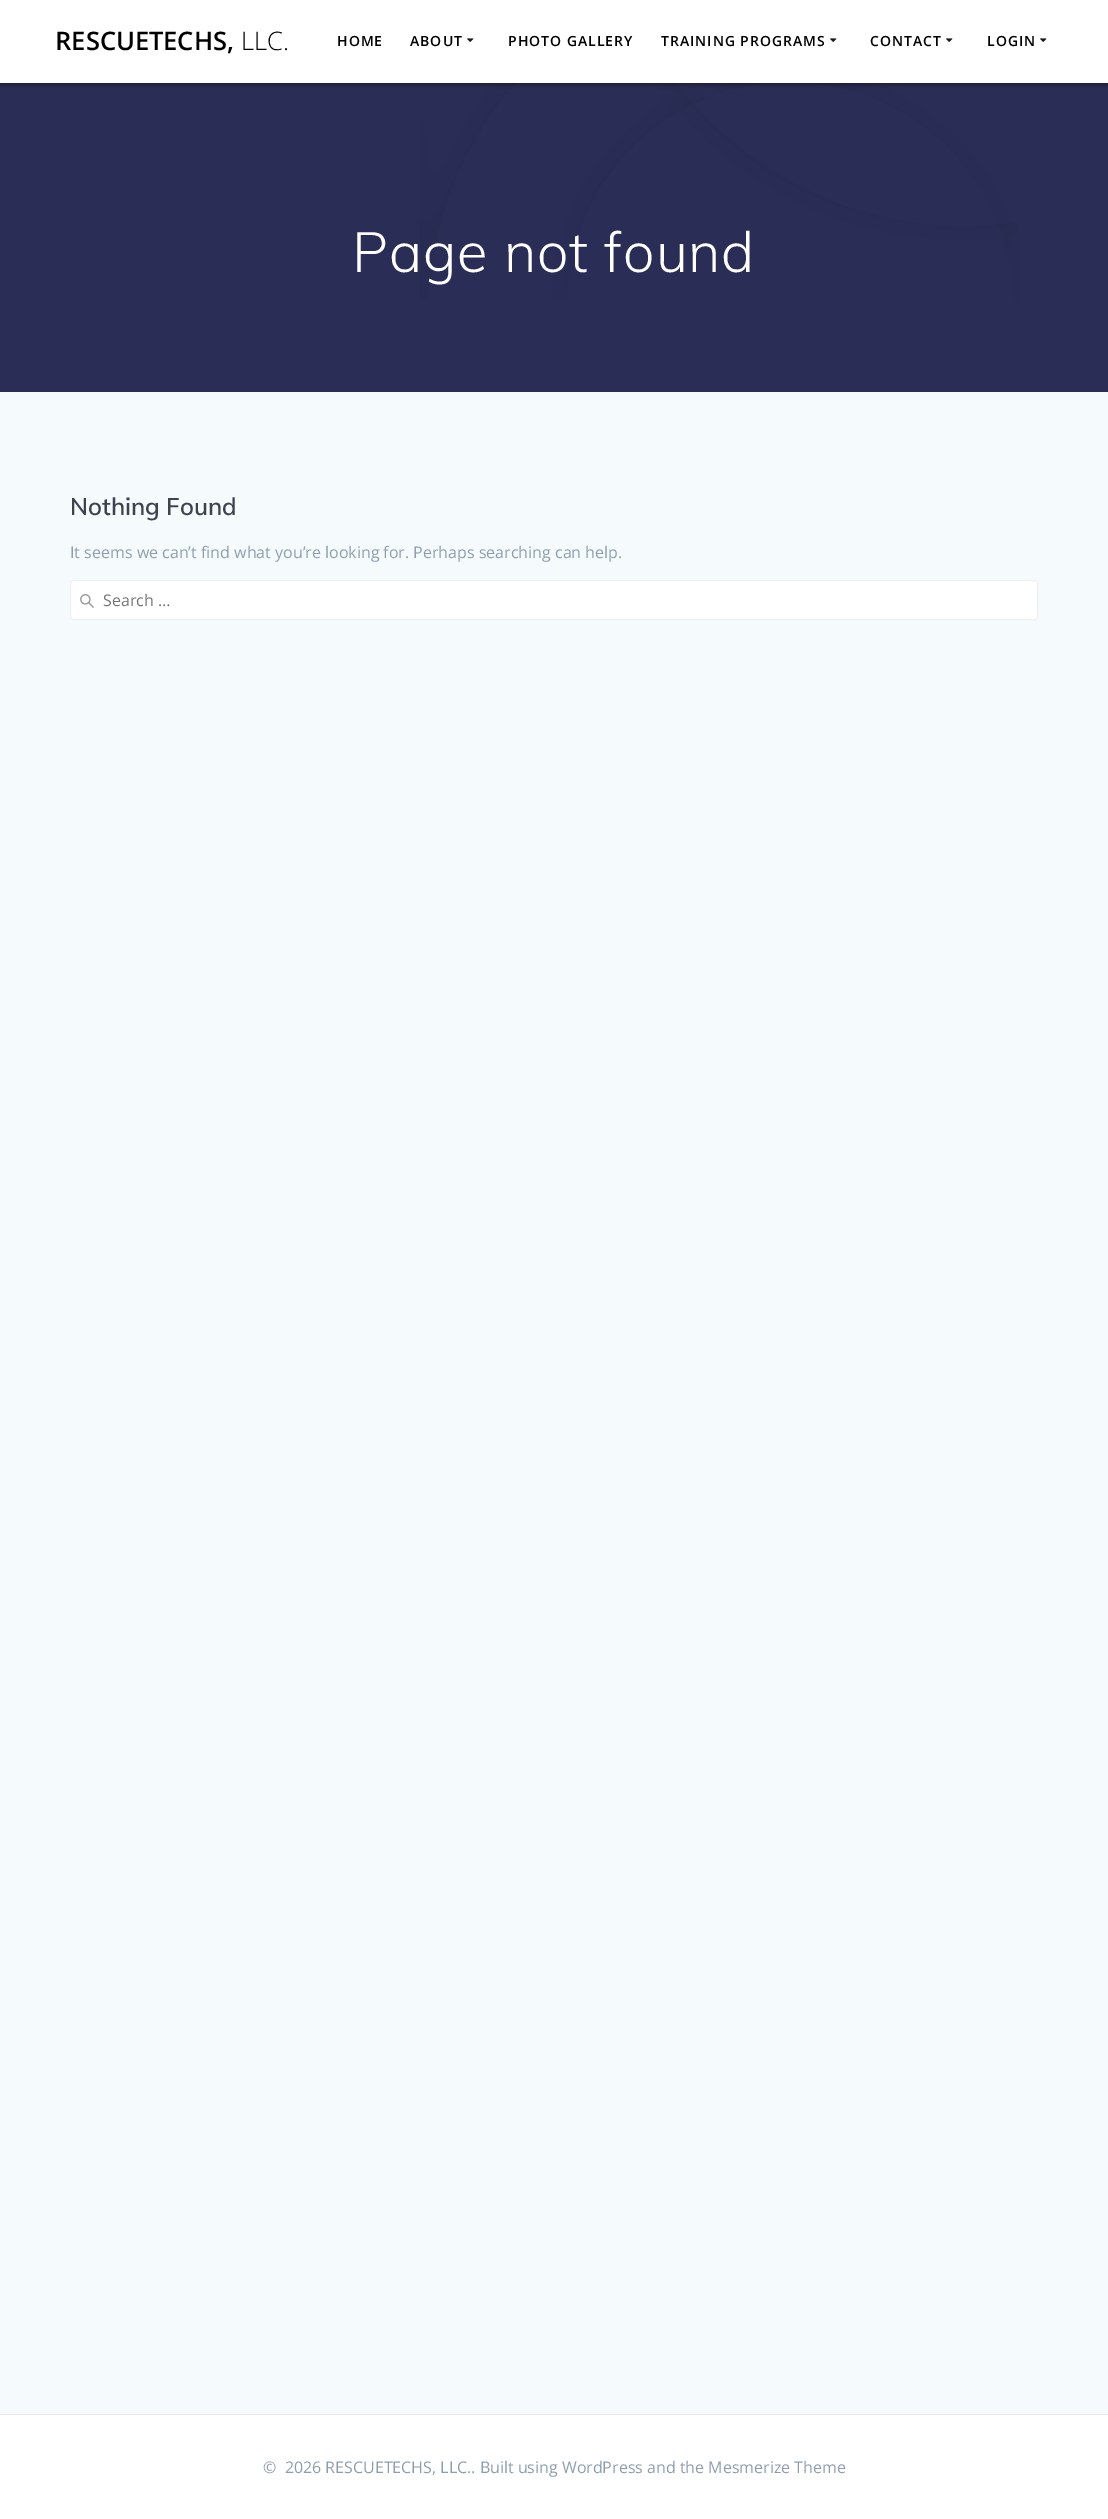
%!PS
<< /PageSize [1108 2519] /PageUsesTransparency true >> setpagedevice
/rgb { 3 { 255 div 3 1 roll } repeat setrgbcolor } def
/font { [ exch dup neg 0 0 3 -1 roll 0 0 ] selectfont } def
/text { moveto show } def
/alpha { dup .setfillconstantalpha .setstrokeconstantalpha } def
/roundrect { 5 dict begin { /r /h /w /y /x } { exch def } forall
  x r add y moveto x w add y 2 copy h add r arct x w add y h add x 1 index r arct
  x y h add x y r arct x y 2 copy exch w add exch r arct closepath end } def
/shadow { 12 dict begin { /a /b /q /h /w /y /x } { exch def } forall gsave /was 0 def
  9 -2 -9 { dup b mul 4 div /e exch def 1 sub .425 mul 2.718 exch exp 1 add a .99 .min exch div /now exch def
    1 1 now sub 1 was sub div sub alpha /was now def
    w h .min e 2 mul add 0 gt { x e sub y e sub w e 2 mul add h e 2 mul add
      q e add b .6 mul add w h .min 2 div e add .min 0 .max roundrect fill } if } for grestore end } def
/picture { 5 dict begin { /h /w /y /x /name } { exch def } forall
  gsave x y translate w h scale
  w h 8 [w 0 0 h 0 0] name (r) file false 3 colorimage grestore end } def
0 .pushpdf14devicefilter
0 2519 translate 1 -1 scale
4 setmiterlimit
255 255 255 rgb
0 0 1108 2519 rectfill
42 46 87 rgb
0 83 1108 309 rectfill
(img_02.rgb) 420 83 598 218 picture
0 0 0 rgb
-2 -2 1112 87 0 2.5 0.33 shadow
255 255 255 rgb
0 0 1108 83 rectfill
(img_01.rgb) 467 38 7 4 picture
(img_01.rgb) 830 38 7 4 picture
(img_01.rgb) 946 38 7 4 picture
(img_01.rgb) 1040 38 7 4 picture
245 250 253 rgb
0 392 1108 2022 rectfill
255 255 255 rgb
70 580 968 40 3 roundrect fill
(img_03.rgb) 80 594 14 14 picture
241 241 241 rgb
70.5 580.5 967 39 2.5 roundrect stroke
232 232 232 rgb
0 2414 1108 1 rectfill
/OpenSans-SemiBold 25.5 font
0 0 0 rgb
(RESCUETECHS,) 55 50 text
/OpenSans-Light 25.5 font
(LLC.) 241 50 text
/OpenSans-SemiBold 14 font
337 46 moveto 1 0 (HOME) ashow
410 46 moveto 1 0 (ABOUT) ashow
508 46 moveto 1 0 (PHOTO GALLERY) ashow
661 46 moveto 1 0 (TRAINING PROGRAMS) ashow
870 46 moveto 1 0 (CONTACT) ashow
987 46 moveto 1 0 (LOGIN) ashow
/Muli-Light 56 font
255 255 255 rgb
352 272 moveto 0.9 0 (Page not found) ashow
/Muli-SemiBold 24 font
60 66 79 rgb
(Nothing Found) 70 515 text
/OpenSans-Regular 16 font
142 157 174 rgb
(It seems we can’t find what you’re looking for. Perhaps searching can help.) 70 558 text
117 117 117 rgb
(Search …) 103 606 text
142 157 174 rgb
(©  2026 RESCUETECHS, LLC.. Built using WordPress and the Mesmerize Theme) 263 2473 text
.poppdf14devicefilter showpage
